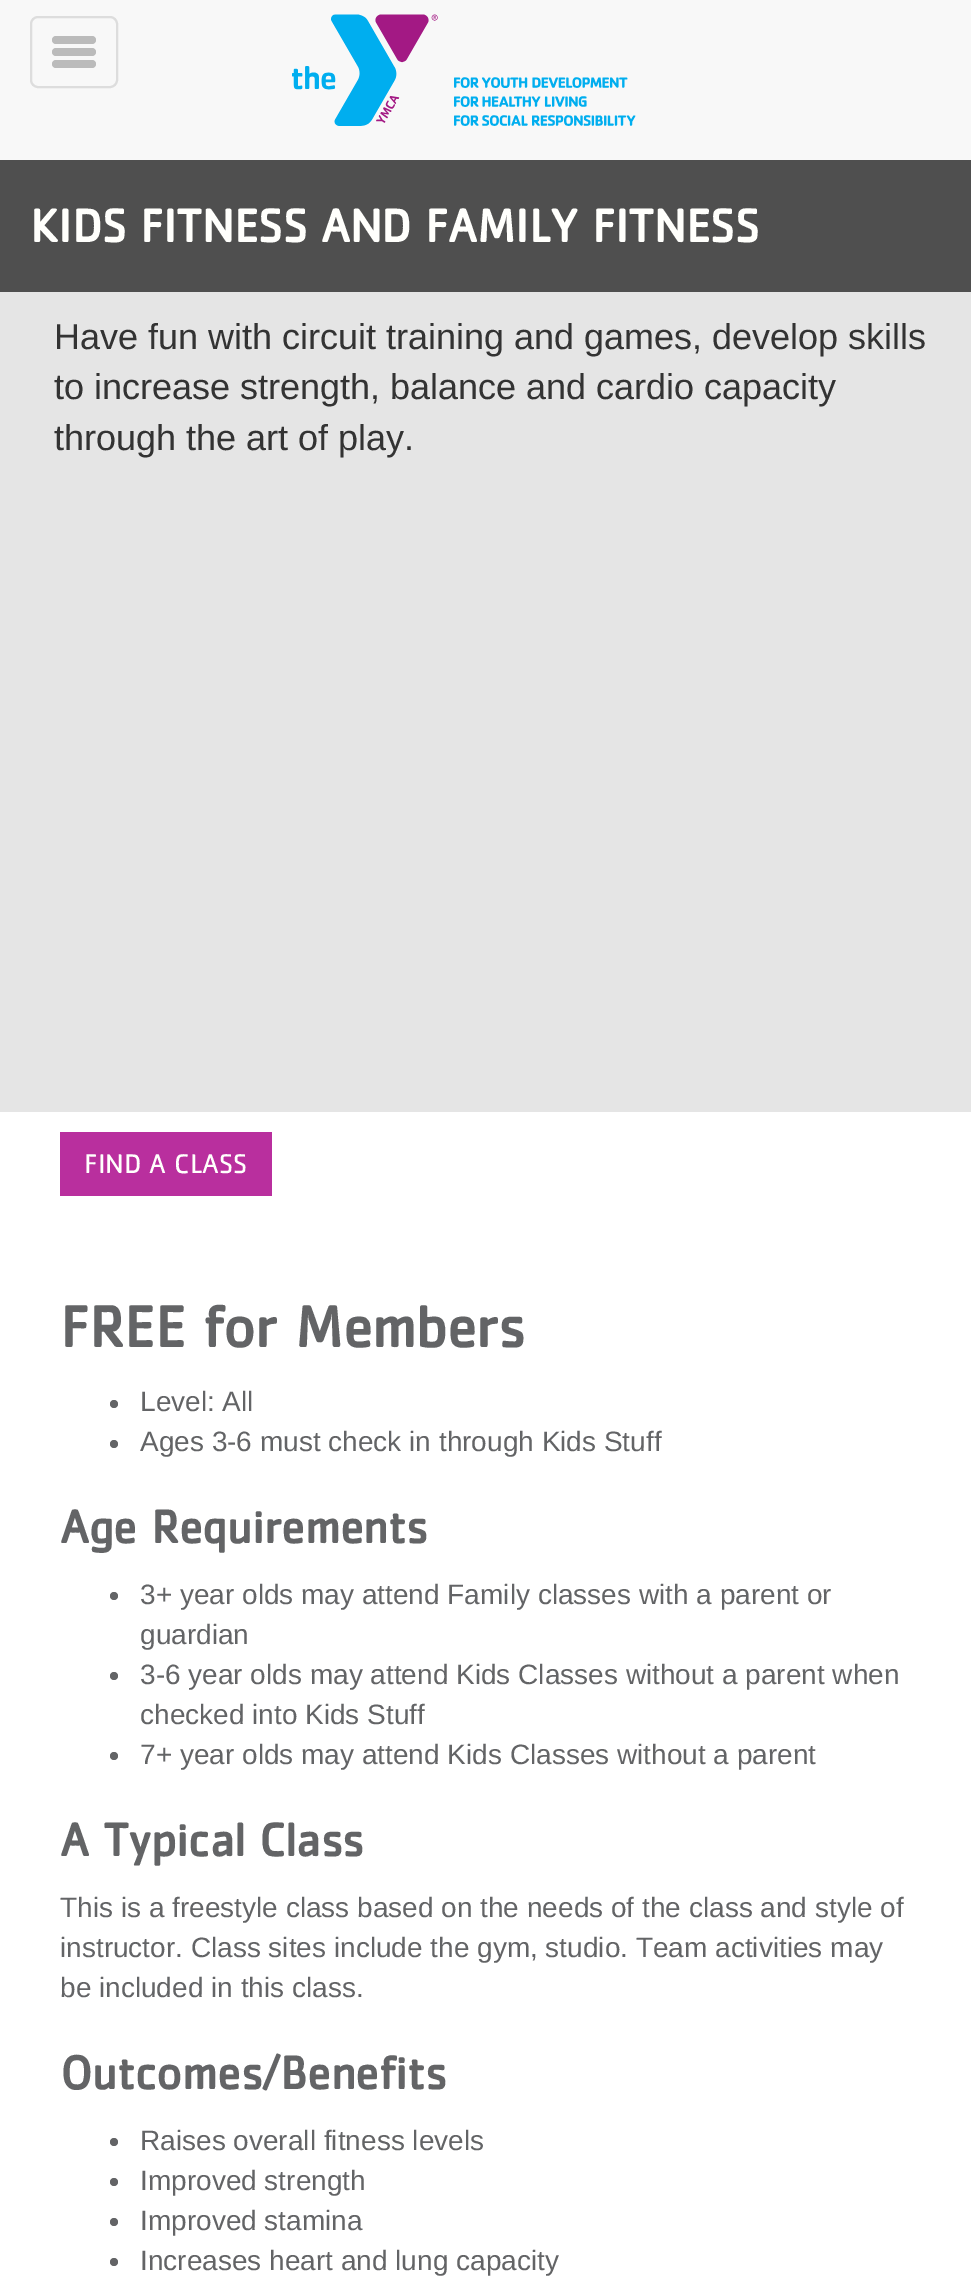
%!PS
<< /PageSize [971 2281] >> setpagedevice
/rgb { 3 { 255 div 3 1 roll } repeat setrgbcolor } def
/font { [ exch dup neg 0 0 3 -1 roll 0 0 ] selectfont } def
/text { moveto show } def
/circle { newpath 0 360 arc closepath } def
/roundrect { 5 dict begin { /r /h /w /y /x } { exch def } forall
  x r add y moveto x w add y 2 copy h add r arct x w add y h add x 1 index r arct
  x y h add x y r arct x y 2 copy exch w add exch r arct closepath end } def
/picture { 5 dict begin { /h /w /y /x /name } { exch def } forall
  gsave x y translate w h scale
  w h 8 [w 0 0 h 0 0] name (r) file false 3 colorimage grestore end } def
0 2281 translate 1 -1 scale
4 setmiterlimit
255 255 255 rgb
0 0 971 2281 rectfill
248 248 248 rgb
0 0 971 160 rectfill
221 221 221 rgb
2 setlinewidth
31 17 86 70 7 roundrect stroke
187 187 187 rgb
52 36 44 8 4 roundrect fill
52 48 44 8 4 roundrect fill
52 60 44 8 4 roundrect fill
(img_01.rgb) 292 14 344 112 picture
79 79 79 rgb
0 160 971 132 rectfill
229 229 229 rgb
0 292 971 820 rectfill
185 47 158 rgb
60 1132 212 64 rectfill
99 100 102 rgb
114 1404 4 circle fill
114 1444 4 circle fill
114 1596 4 circle fill
114 1676 4 circle fill
114 1756 4 circle fill
114 2142 4 circle fill
114 2182 4 circle fill
114 2222 4 circle fill
114 2262 4 circle fill
/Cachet-Bold 48 font
255 255 252 rgb
(KIDS FITNESS AND FAMILY FITNESS) 30 242 text
/LiberationSans-Regular 36 font
51 51 51 rgb
(Have fun with circuit training and games, develop skills) 54 349 text
(to increase strength, balance and cardio capacity) 54 399 text
(through the art of play.) 54 450 text
/Cachet-Regular 28 font
255 255 252 rgb
(FIND A CLASS) 84 1173 text
/Cachet-Bold 60 font
99 100 102 rgb
(FREE for Members) 60 1347 text
/LiberationSans-Regular 28 font
(Level: All) 140 1411 text
(Ages 3-6 must check in through Kids Stuff) 140 1451 text
/Cachet-Bold 48 font
(Age Requirements) 60 1543 text
/LiberationSans-Regular 28 font
(3+ year olds may attend Family classes with a parent or) 140 1604 text
(guardian) 140 1644 text
(3-6 year olds may attend Kids Classes without a parent when) 140 1684 text
(checked into Kids Stuff) 140 1724 text
(7+ year olds may attend Kids Classes without a parent) 140 1764 text
/Cachet-Bold 48 font
(A Typical Class) 60 1856 text
/LiberationSans-Regular 28 font
(This is a freestyle class based on the needs of the class and style of) 60 1917 text
(instructor. Class sites include the gym, studio. Team activities may) 60 1957 text
(be included in this class.) 60 1997 text
/Cachet-Bold 48 font
(Outcomes/Benefits) 60 2089 text
/LiberationSans-Regular 28 font
(Raises overall fitness levels) 140 2150 text
(Improved strength) 140 2190 text
(Improved stamina) 140 2230 text
(Increases heart and lung capacity) 140 2270 text
showpage
